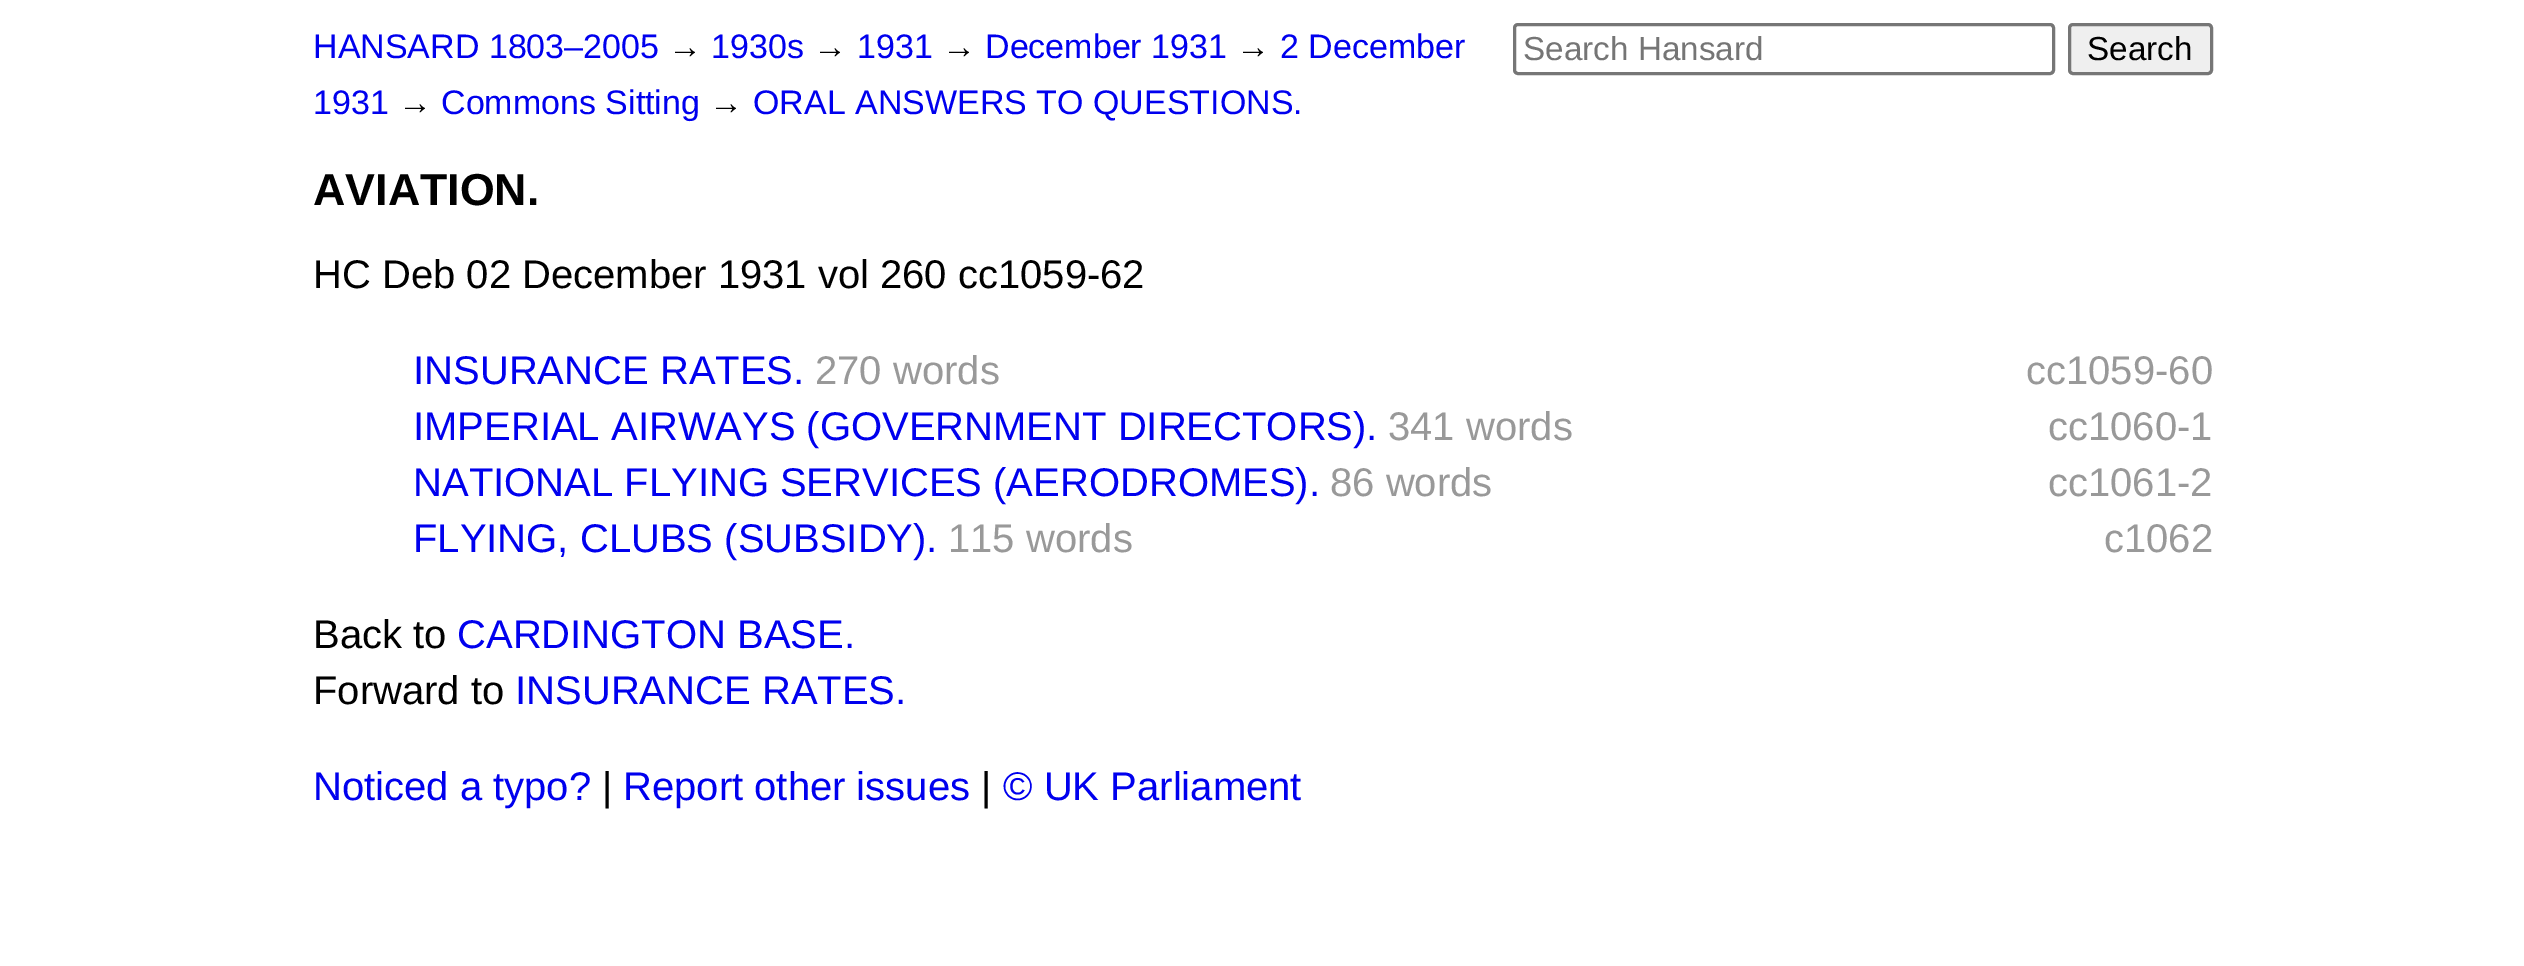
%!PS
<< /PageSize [2524 966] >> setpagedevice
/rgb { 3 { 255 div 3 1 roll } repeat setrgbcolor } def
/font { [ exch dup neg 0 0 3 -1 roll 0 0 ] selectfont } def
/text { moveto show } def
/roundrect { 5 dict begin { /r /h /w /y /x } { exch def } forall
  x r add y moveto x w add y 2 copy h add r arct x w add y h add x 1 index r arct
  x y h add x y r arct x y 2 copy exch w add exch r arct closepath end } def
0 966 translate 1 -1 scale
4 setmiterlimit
255 255 255 rgb
0 0 2524 966 rectfill
118 118 118 rgb
3 setlinewidth
1514.5 24.5 539 49 3.5 roundrect stroke
239 239 239 rgb
2069.5 24.5 142 49 3.5 roundrect gsave fill grestore
118 118 118 rgb
stroke
/LiberationSans-Regular 34 font
0 0 238 rgb
(HANSARD 1803–2005) 313 58 text
0 0 0 rgb
(→) 668 58 text
0 0 238 rgb
(1930s) 711 58 text
0 0 0 rgb
(→) 813 58 text
0 0 238 rgb
(1931) 857 58 text
0 0 0 rgb
(→) 942 58 text
0 0 238 rgb
(December 1931) 985 58 text
0 0 0 rgb
(→) 1236 58 text
0 0 238 rgb
(2 December) 1280 58 text
(1931) 313 114 text
0 0 0 rgb
(→) 398 114 text
0 0 238 rgb
(Commons Sitting) 441 114 text
0 0 0 rgb
(→) 709 114 text
0 0 238 rgb
(ORAL ANSWERS TO QUESTIONS.) 753 114 text
/LiberationSans-Regular 33.25 font
117 117 117 rgb
(Search Hansard) 1523 60 text
0 0 0 rgb
(Search) 2087 60 text
/LiberationSans-Bold 44.75 font
(AVIATION.) 313 205 text
/LiberationSans-Regular 40 font
(HC Deb 02 December 1931 vol 260 cc1059-62) 313 288 text
0 0 238 rgb
(INSURANCE RATES.) 413 384 text
153 153 153 rgb
(270 words) 815 384 text
(cc1059-60) 2026 384 text
0 0 238 rgb
(IMPERIAL AIRWAYS \(GOVERNMENT DIRECTORS\).) 413 440 text
153 153 153 rgb
(341 words) 1388 440 text
(cc1060-1) 2048 440 text
0 0 238 rgb
(NATIONAL FLYING SERVICES \(AERODROMES\).) 413 496 text
153 153 153 rgb
(86 words) 1330 496 text
(cc1061-2) 2048 496 text
0 0 238 rgb
(FLYING, CLUBS \(SUBSIDY\).) 413 552 text
153 153 153 rgb
(115 words) 948 552 text
(c1062) 2104 552 text
0 0 0 rgb
(Back to) 313 648 text
0 0 238 rgb
(CARDINGTON BASE.) 457 648 text
0 0 0 rgb
(Forward to) 313 704 text
0 0 238 rgb
(INSURANCE RATES.) 515 704 text
(Noticed a typo?) 313 800 text
0 0 0 rgb
(|) 602 800 text
0 0 238 rgb
(Report other issues) 623 800 text
0 0 0 rgb
(|) 981 800 text
0 0 238 rgb
(© UK Parliament) 1003 800 text
showpage
